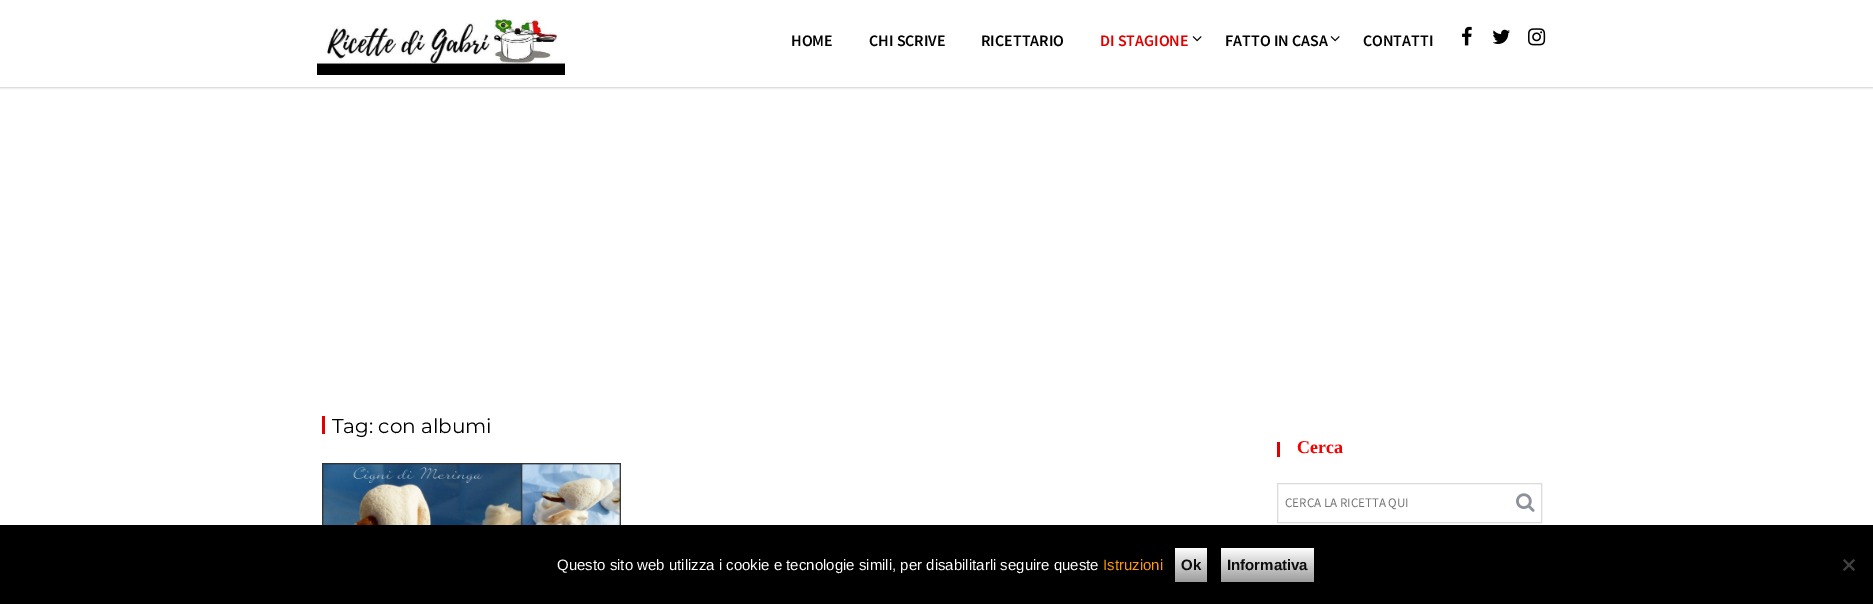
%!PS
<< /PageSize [1873 604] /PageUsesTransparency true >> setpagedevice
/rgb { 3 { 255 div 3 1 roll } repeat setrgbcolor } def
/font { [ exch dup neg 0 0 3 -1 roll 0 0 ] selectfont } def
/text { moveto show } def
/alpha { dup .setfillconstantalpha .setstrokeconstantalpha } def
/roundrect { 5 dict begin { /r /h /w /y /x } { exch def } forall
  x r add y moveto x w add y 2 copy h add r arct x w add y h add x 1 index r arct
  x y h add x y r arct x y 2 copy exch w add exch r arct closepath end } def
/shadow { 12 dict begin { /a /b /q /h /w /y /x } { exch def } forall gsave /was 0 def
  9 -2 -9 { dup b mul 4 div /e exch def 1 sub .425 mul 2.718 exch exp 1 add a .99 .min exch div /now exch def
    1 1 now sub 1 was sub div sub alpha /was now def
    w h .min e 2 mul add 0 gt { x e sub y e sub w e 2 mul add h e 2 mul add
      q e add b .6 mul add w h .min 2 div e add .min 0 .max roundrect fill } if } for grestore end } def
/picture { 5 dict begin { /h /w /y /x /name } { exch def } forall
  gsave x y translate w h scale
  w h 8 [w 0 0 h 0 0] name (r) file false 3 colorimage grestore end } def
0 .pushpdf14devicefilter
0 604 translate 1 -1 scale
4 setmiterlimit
255 255 255 rgb
0 0 1873 604 rectfill
gsave
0 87 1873 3 rectclip
170 170 170 rgb
0 0 1873 87 0 1.5 1 shadow
grestore
(img_01.rgb) 317 17 248 58 picture
(img_02.rgb) 1192 36 10 6 picture
(img_02.rgb) 1330 36 10 6 picture
(img_03.rgb) 1462 26 10 20 picture
(img_04.rgb) 1492 29 18 15 picture
(img_05.rgb) 1528 28 18 18 picture
224 0 0 rgb
322 416 3 18 rectfill
(img_06.rgb) 322 463 299 62 picture
1277 442 3 15 rectfill
219 219 219 rgb
1277.5 483.5 264 39 rectstroke
(img_07.rgb) 1516 493 19 19 picture
0 0 0 rgb
0 525 1873 79 rectfill
gsave 1175 548 moveto 32 0 rlineto 0 34 rlineto -32 0 rlineto closepath clip newpath
<< /ShadingType 2 /ColorSpace /DeviceRGB /Coords [1191 548 1191 582] /Extend [true true] /Function << /FunctionType 2 /Domain [0 1] /C0 [0.996 0.996 0.996] /C1 [0.612 0.612 0.612] /N 1 >> >> shfill grestore
gsave 1221 548 moveto 93 0 rlineto 0 34 rlineto -93 0 rlineto closepath clip newpath
<< /ShadingType 2 /ColorSpace /DeviceRGB /Coords [1268 548 1268 582] /Extend [true true] /Function << /FunctionType 2 /Domain [0 1] /C0 [0.996 0.996 0.996] /C1 [0.612 0.612 0.612] /N 1 >> >> shfill grestore
64 64 64 rgb
1853.5 559 moveto 1.5 1.5 rlineto -10.5 10.5 rlineto -1.5 -1.5 rlineto closepath fill
1843 560.5 moveto 1.5 -1.5 rlineto 10.5 10.5 rlineto -1.5 1.5 rlineto closepath fill
/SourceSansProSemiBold-SemiBold 16 font
0 0 0 rgb
(HOME) 791 46 text
(CHI SCRIVE) 869 46 text
(RICETTARIO) 981 46 text
224 0 0 rgb
(DI STAGIONE) 1100 46 text
0 0 0 rgb
(FATTO IN CASA) 1225 46 text
(CONTATTI) 1363 46 text
/Montserrat-Regular 20 font
(Tag: con albumi) 332 433 text
/LiberationSerif-Bold 18 font
249 0 0 rgb
(Cerca) 1297 453 text
/SourceSansPro-Regular 13 font
117 117 117 rgb
(CERCA LA RICETTA QUI) 1285 507 text
/LiberationSans-Regular 15 font
255 255 255 rgb
(Questo sito web utilizza i cookie e tecnologie simili, per disabilitarli seguire queste) 557 570 text
255 153 0 rgb
(Istruzioni) 1103 570 text
/LiberationSans-Bold 15 font
12 12 12 rgb
(Ok) 1181 570 text
(Informativa) 1227 570 text
.poppdf14devicefilter showpage
